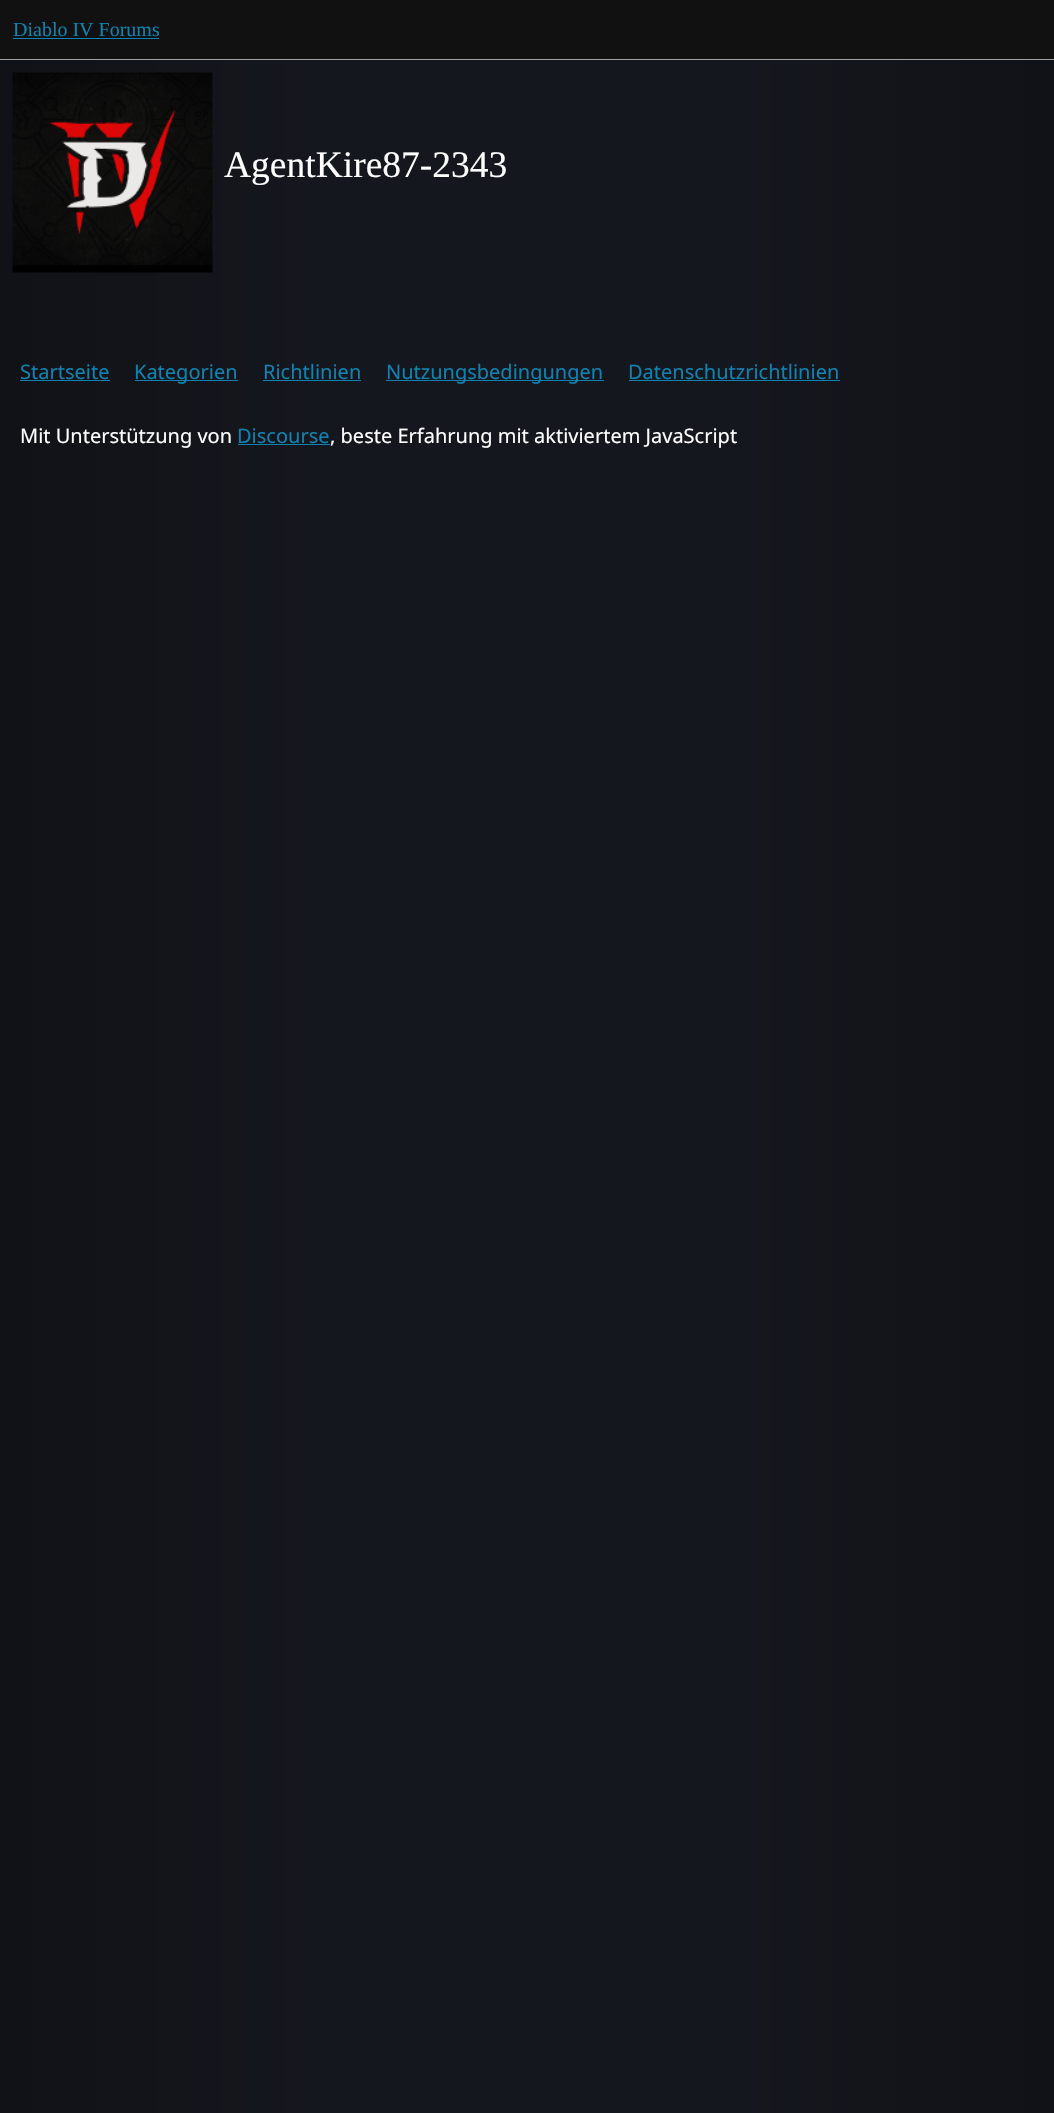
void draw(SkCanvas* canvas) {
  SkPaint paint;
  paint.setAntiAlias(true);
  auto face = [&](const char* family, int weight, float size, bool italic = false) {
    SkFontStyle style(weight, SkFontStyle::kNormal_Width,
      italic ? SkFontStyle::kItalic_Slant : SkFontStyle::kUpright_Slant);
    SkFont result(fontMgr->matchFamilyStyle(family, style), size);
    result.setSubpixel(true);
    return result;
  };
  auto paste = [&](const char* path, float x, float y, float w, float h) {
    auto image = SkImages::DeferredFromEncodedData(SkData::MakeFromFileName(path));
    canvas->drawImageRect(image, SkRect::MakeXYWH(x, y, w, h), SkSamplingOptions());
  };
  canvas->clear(0xffffffff);
  {
    const SkColor colors[] = {0xff111217, 0xff15171e, 0xff15171e, 0xff111217};
    const float stops[] = {0, 0.3f, 0.7f, 1};
    const SkPoint ends[] = {{0, 1057}, {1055, 1057}};
    paint.setShader(SkGradientShader::MakeLinear(ends, colors, stops, 4, SkTileMode::kClamp));
    paint.setAlpha(255);
  }
  canvas->drawRect(SkRect::MakeXYWH(0, 60, 1054, 2053), paint);
  paint.setShader(nullptr);
  {
    const struct { float x, y, w, h; SkColor color; } items[] = {
      {0, 0, 1054, 59, 0xff111111},
      {0, 59, 1054, 1, 0xffa4a4a4},
      {13, 38, 146, 1, 0xff0f82af},
    };
    for (auto [x, y, w, h, color] : items) {
      paint.setColor(color);
      canvas->drawRect(SkRect::MakeXYWH(x, y, w, h), paint);
    }
  }
  paste("img/1.png", 12, 72, 201, 201);
  {
    const struct { float x, y, w, h; SkColor color; } items[] = {
      {20, 380, 90, 1, 0xff0f82af},
      {135, 380, 103, 1, 0xff0f82af},
      {263, 380, 98, 1, 0xff0f82af},
      {386, 380, 218, 1, 0xff0f82af},
      {629, 380, 211, 1, 0xff0f82af},
      {238, 444, 92, 1, 0xff0f82af},
    };
    for (auto [x, y, w, h, color] : items) {
      paint.setColor(color);
      canvas->drawRect(SkRect::MakeXYWH(x, y, w, h), paint);
    }
  }
  auto f0 = face("Liberation Serif", 400, 20);
  canvas->drawString("Diablo IV Forums", 13, 36, f0, paint);
  auto f1 = face("Liberation Serif", 400, 37.5f);
  paint.setColor(0xffffffff);
  canvas->drawString("AgentKire87-2343", 224, 177, f1, paint);
  auto f2 = face("Noto Sans", 400, 20);
  paint.setColor(0xff0f82af);
  {
    const struct { const char* s; float x, y; } items[] = {
      {"Startseite", 20, 379},
      {"Kategorien", 134, 379},
      {"Richtlinien", 263, 379},
      {"Nutzungsbedingungen", 386, 379},
      {"Datenschutzrichtlinien", 628, 379},
    };
    for (auto [s, x, y] : items) {
      canvas->drawString(s, x, y, f2, paint);
    }
  }
  paint.setColor(0xffffffff);
  canvas->drawString("Mit Unterstützung von", 20, 443, f2, paint);
  paint.setColor(0xff0f82af);
  canvas->drawString("Discourse", 237, 443, f2, paint);
  paint.setColor(0xffffffff);
  canvas->drawString(", beste Erfahrung mit aktiviertem JavaScript", 330, 443, f2, paint);
}
